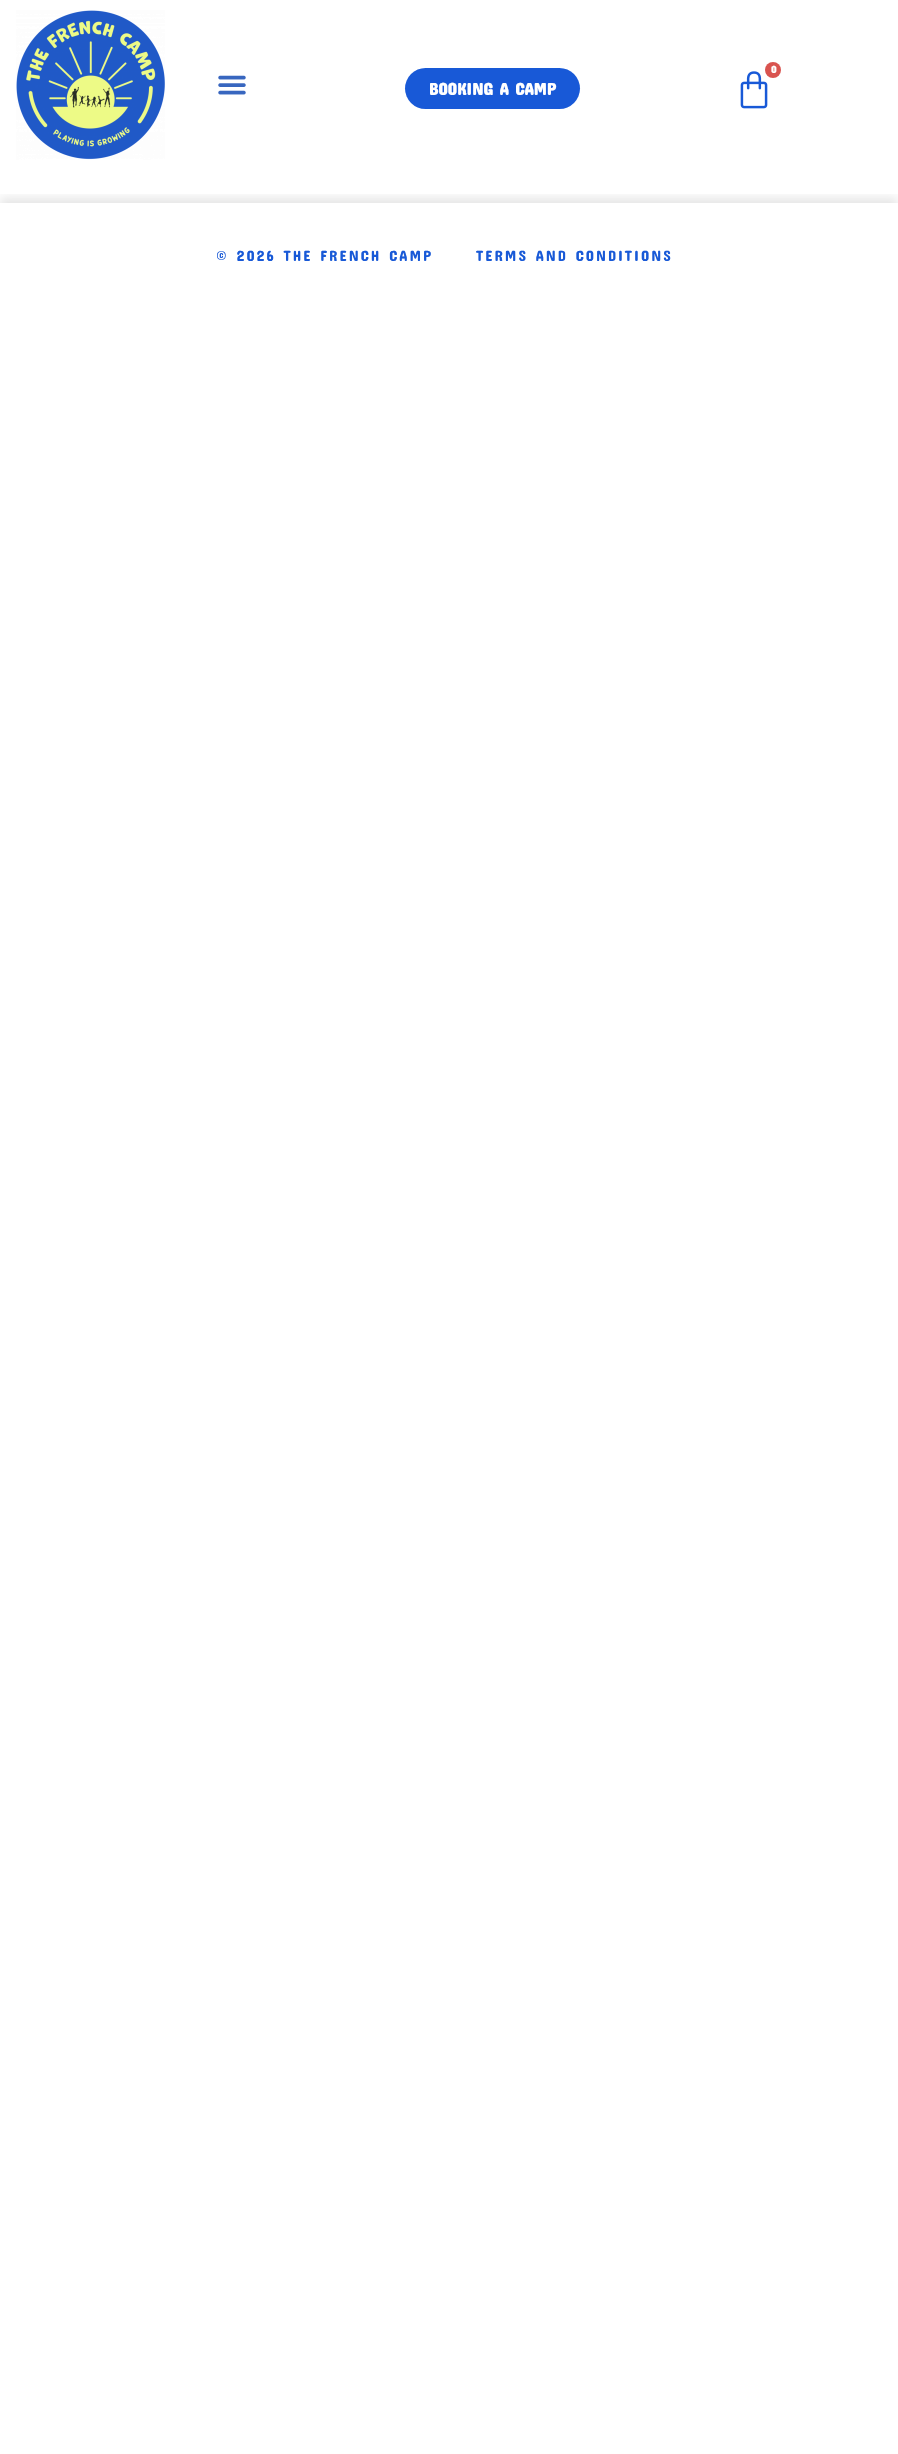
void draw(SkCanvas* canvas) {
  SkPaint paint;
  paint.setAntiAlias(true);
  auto face = [&](const char* family, int weight, float size, bool italic = false) {
    SkFontStyle style(weight, SkFontStyle::kNormal_Width,
      italic ? SkFontStyle::kItalic_Slant : SkFontStyle::kUpright_Slant);
    SkFont result(fontMgr->matchFamilyStyle(family, style), size);
    result.setSubpixel(true);
    return result;
  };
  auto writeSpaced = [&](const char* s, float x, float y, const SkFont& font, const SkPaint& ink, float letter, float word) {
    std::vector<SkGlyphID> glyphs(font.countText(s, strlen(s), SkTextEncoding::kUTF8));
    std::vector<float> xs(glyphs.size());
    font.textToGlyphs(s, strlen(s), SkTextEncoding::kUTF8, glyphs);
    font.getXPos(glyphs, xs, x);
    float extra = 0;
    for (size_t i = 0; i < glyphs.size(); i++) {
      xs[i] += extra;
      extra += letter + word * (glyphs[i] == font.unicharToGlyph(' '));
    }
    canvas->drawTextBlob(SkTextBlob::MakeFromPosHGlyphs(glyphs, xs, y, font), 0, 0, ink);
  };
  auto paste = [&](const char* path, float x, float y, float w, float h) {
    auto image = SkImages::DeferredFromEncodedData(SkData::MakeFromFileName(path));
    canvas->drawImageRect(image, SkRect::MakeXYWH(x, y, w, h), SkSamplingOptions());
  };
  canvas->clear(0xffffffff);
  paste("img/1.png", 16, 10, 149, 150);
  paste("img/2.png", 740, 71, 28, 38);
  paint.setColor(0xffd9534f);
  canvas->drawCircle(773, 70, 8, paint);
  paste("img/3.png", 218, 75, 28, 20);
  paint.setColor(0xff1859d7);
  canvas->drawRoundRect(SkRect::MakeXYWH(405, 68, 175, 41), 20.5f, 20.5f, paint);
  canvas->save();
  canvas->clipRect(SkRect::MakeXYWH(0, 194, 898, 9));
  paint.setColor(0x1a000000);
  paint.setMaskFilter(SkMaskFilter::MakeBlur(kNormal_SkBlurStyle, 5));
  canvas->drawRect(SkRect::MakeXYWH(0, 198, 898, 90), paint);
  paint.setMaskFilter(nullptr);
  canvas->restore();
  auto f0 = face("Concert One", 700, 10);
  paint.setColor(0xffffffff);
  canvas->drawString("0", 771, 73, f0, paint);
  auto f1 = face("Concert One", 700, 17);
  canvas->drawString("BOOKING A CAMP", 429, 95, f1, paint);
  auto f2 = face("Concert One", 400, 15);
  paint.setColor(0xff1859d7);
  writeSpaced("© 2026 THE FRENCH CAMP", 216, 261, f2, paint, 2, 0);
  writeSpaced("TERMS AND CONDITIONS", 476, 261, f2, paint, 2, 0);
}
